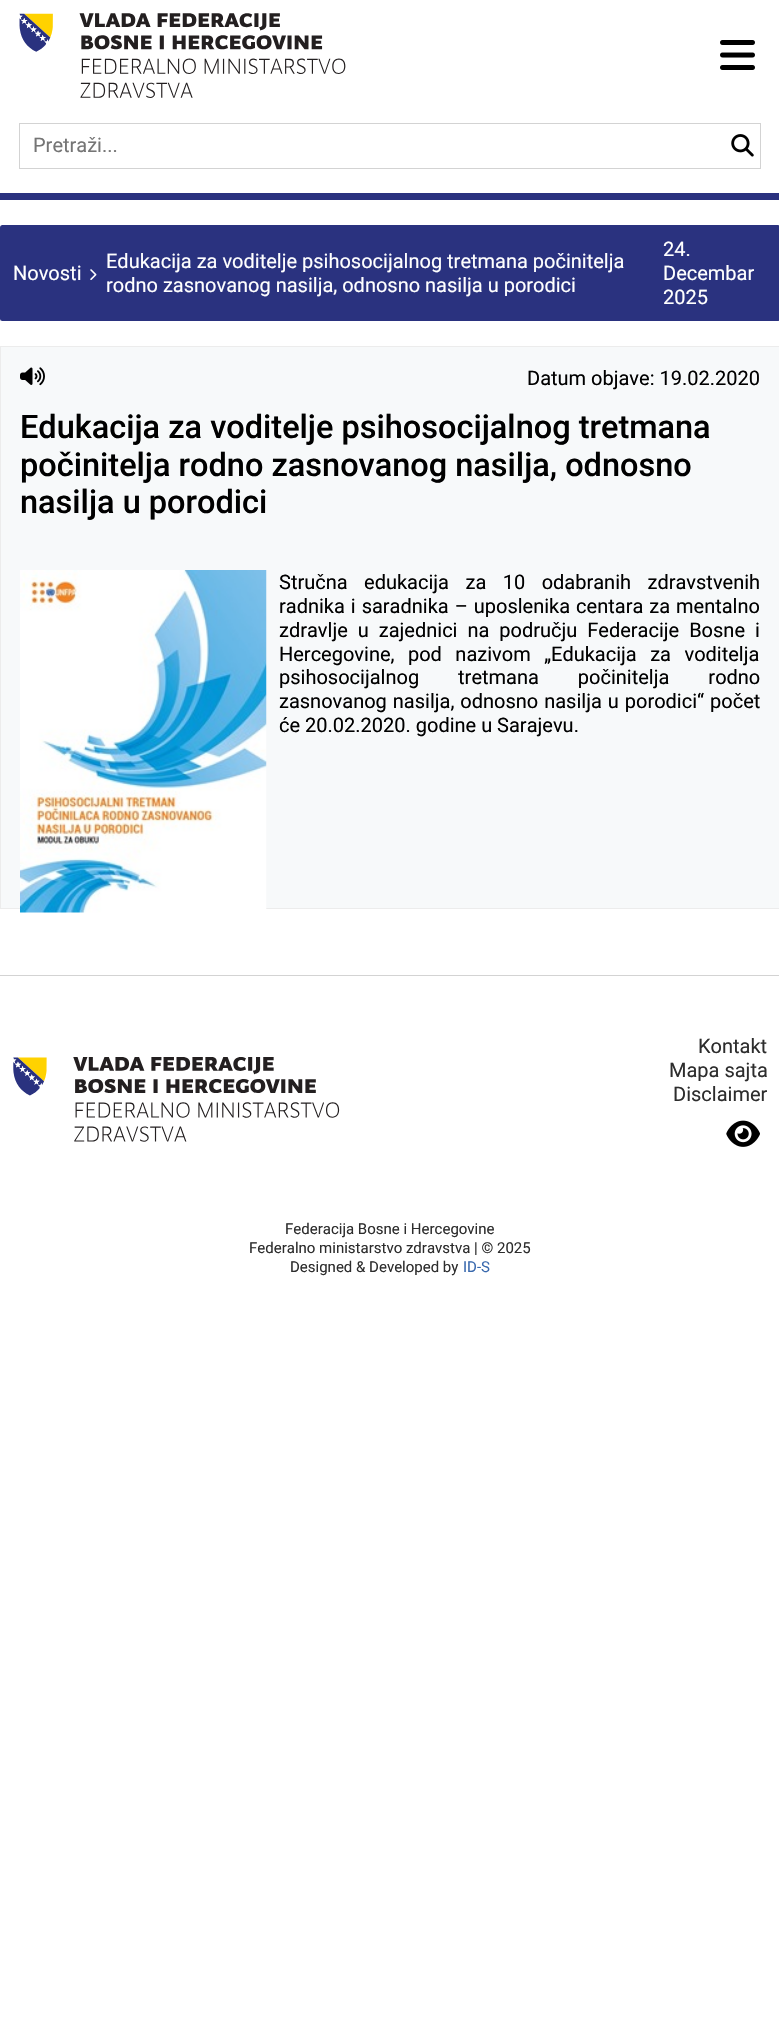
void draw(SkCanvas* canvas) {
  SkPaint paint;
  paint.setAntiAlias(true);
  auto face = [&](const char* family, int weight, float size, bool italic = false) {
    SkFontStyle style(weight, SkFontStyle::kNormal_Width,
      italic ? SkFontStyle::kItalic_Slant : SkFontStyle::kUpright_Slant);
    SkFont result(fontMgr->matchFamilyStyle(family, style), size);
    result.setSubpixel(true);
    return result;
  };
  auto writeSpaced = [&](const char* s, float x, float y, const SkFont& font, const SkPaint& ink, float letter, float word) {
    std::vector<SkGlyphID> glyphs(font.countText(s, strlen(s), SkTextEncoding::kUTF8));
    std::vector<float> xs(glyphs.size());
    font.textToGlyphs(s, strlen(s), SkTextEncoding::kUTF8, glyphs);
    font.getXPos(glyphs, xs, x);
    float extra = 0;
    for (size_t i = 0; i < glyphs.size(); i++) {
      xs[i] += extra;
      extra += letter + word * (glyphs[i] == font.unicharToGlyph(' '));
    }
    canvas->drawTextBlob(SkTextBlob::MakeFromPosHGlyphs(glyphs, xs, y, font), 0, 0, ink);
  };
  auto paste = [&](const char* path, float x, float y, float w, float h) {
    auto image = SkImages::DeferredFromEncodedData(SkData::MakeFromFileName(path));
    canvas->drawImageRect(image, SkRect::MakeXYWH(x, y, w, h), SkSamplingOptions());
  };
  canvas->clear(0xffffffff);
  paste("img/1.png", 19, 13, 327, 85);
  paste("img/2.png", 720, 40, 35, 30);
  paint.setStroke(true);
  paint.setStrokeWidth(1);
  paint.setColor(0xffd3d3d3);
  canvas->drawRect(SkRect::MakeXYWH(19.5f, 123.5f, 741, 45), paint);
  paste("img/3.png", 731, 134, 23, 23);
  paint.setStroke(false);
  paint.setColor(0xff2a327f);
  canvas->drawRect(SkRect::MakeXYWH(0, 193, 779, 7), paint);
  canvas->drawRoundRect(SkRect::MakeXYWH(0, 225, 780, 96), 2.5f, 2.5f, paint);
  paste("img/4.png", 90, 269, 7, 11);
  paint.setColor(0xfff7f9fa);
  canvas->drawRect(SkRect::MakeXYWH(0.5f, 346.5f, 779, 562), paint);
  paint.setStroke(true);
  paint.setColor(0xffececec);
  canvas->drawRect(SkRect::MakeXYWH(0.5f, 346.5f, 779, 562), paint);
  paste("img/5.png", 20, 367, 25, 19);
  paste("img/6.png", 20, 570, 247, 343);
  paint.setStroke(false);
  paint.setColor(0xffd3d3d3);
  canvas->drawRect(SkRect::MakeXYWH(0, 975, 779, 1), paint);
  paste("img/7.png", 13, 1057, 327, 85);
  paste("img/8.png", 726, 1120, 34, 27);
  auto f0 = face("Roboto", 400, 20);
  paint.setColor(0xff757575);
  canvas->drawString("Pretraži...", 33, 152, f0, paint);
  paint.setColor(0xffffffff);
  {
    const struct { const char* s; float x, y; } items[] = {
      {"Novosti", 13, 280},
      {"Edukacija za voditelje psihosocijalnog tretmana počinitelja", 106, 268},
      {"rodno zasnovanog nasilja, odnosno nasilja u porodici", 106, 292},
      {"24.", 663, 256},
      {"Decembar", 663, 280},
      {"2025", 663, 304},
    };
    for (auto [s, x, y] : items) {
      canvas->drawString(s, x, y, f0, paint);
    }
  }
  paint.setColor(0xff000000);
  canvas->drawString("Datum objave: 19.02.2020", 527, 385, f0, paint);
  auto f1 = face("Roboto", 500, 32.5f);
  {
    const struct { const char* s; float x, y; } items[] = {
      {"Edukacija za voditelje psihosocijalnog tretmana", 20, 438},
      {"počinitelja rodno zasnovanog nasilja, odnosno", 20, 476},
      {"nasilja u porodici", 20, 513},
    };
    for (auto [s, x, y] : items) {
      canvas->drawString(s, x, y, f1, paint);
    }
  }
  writeSpaced("Stručna edukacija za 10 odabranih zdravstvenih", 279, 589, f0, paint, 0, 11.5f);
  writeSpaced("radnika i saradnika – uposlenika centara za mentalno", 279, 613, f0, paint, 0, 1);
  writeSpaced("zdravlje u zajednici na području Federacije Bosne i", 279, 637, f0, paint, 0, 5);
  writeSpaced("Hercegovine, pod nazivom „Edukacija za voditelja", 279, 661, f0, paint, 0, 8.5f);
  writeSpaced("psihosocijalnog tretmana počinitelja rodno", 279, 684, f0, paint, 0, 34);
  writeSpaced("zasnovanog nasilja, odnosno nasilja u porodici“ počet", 279, 708, f0, paint, 0, 1);
  canvas->drawString("će 20.02.2020. godine u Sarajevu.", 279, 732, f0, paint);
  paint.setColor(0xff2d2d2d);
  {
    const struct { const char* s; float x, y; } items[] = {
      {"Kontakt", 698, 1053},
      {"Mapa sajta", 669, 1077},
      {"Disclaimer", 673, 1101},
    };
    for (auto [s, x, y] : items) {
      canvas->drawString(s, x, y, f0, paint);
    }
  }
  auto f2 = face("Roboto", 400, 15);
  {
    const struct { const char* s; float x, y; } items[] = {
      {"Federacija Bosne i Hercegovine", 285, 1234},
      {"Federalno ministarstvo zdravstva | © 2025", 249, 1253},
      {"Designed & Developed by", 290, 1272},
    };
    for (auto [s, x, y] : items) {
      canvas->drawString(s, x, y, f2, paint);
    }
  }
  paint.setColor(0xff3868ad);
  canvas->drawString("ID-S", 463, 1272, f2, paint);
}
